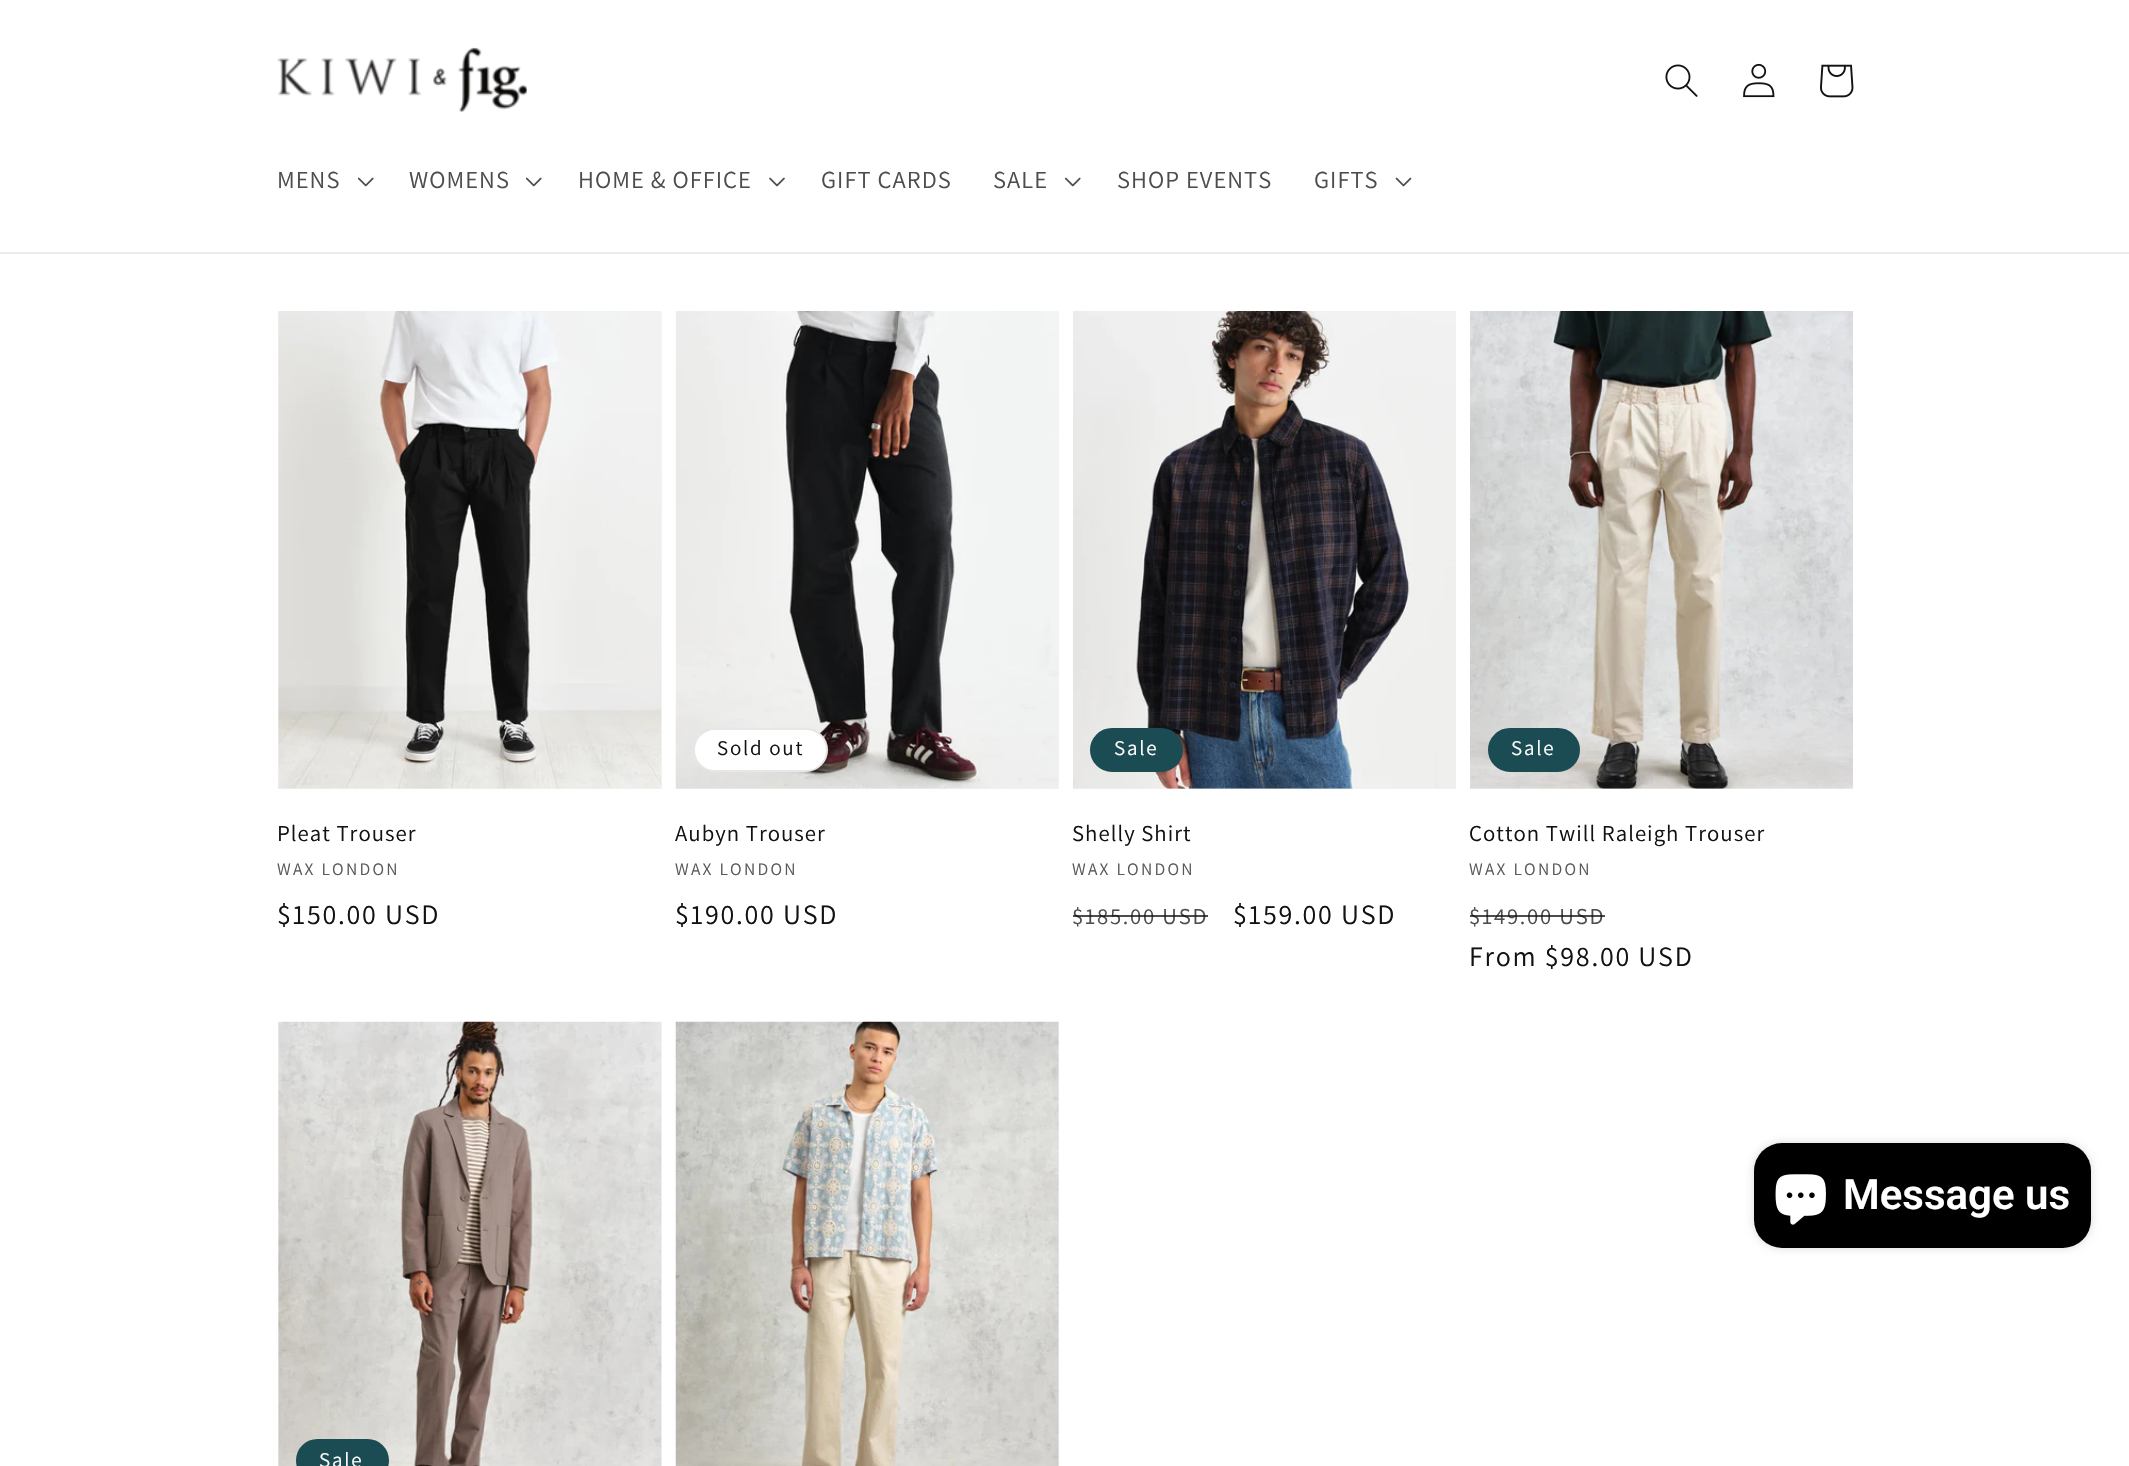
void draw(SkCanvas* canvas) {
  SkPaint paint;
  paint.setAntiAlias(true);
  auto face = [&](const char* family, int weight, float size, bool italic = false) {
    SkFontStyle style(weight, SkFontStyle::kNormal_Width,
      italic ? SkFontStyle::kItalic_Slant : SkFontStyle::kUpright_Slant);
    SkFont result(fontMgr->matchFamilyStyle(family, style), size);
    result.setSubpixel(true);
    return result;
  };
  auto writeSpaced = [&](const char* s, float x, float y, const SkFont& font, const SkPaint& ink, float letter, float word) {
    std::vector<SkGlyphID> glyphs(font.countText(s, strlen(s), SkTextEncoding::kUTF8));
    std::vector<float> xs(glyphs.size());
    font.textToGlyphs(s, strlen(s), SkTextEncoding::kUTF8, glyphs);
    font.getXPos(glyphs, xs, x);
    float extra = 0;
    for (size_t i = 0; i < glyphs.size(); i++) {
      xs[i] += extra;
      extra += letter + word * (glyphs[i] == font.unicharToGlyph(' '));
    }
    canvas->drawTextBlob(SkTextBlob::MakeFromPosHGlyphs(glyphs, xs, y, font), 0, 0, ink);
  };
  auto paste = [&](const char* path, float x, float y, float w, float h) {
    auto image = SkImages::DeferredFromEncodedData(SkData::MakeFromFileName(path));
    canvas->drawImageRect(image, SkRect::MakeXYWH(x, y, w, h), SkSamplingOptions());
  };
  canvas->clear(0xffffffff);
  paint.setColor(0xffececec);
  canvas->drawRect(SkRect::MakeXYWH(0, 252, 2129, 2), paint);
  paste("img/1.png", 277, 47, 250, 65);
  paste("img/2.png", 1665, 64, 33, 33);
  paste("img/3.png", 1743, 63, 32, 35);
  paste("img/4.png", 1820, 64, 34, 34);
  paste("img/5.png", 357, 177, 17, 10);
  paste("img/5.png", 525, 177, 17, 10);
  paste("img/6.png", 769, 177, 16, 10);
  paste("img/5.png", 1064, 177, 17, 10);
  paste("img/7.png", 1395, 177, 17, 10);
  paint.setColor(0xfff3f3f3);
  canvas->drawRect(SkRect::MakeXYWH(278, 312, 384, 477), paint);
  paste("img/8.png", 278, 311, 384, 478);
  canvas->drawRect(SkRect::MakeXYWH(676, 312, 383, 477), paint);
  paste("img/9.png", 675, 311, 384, 478);
  paint.setColor(0xffffffff);
  canvas->drawRoundRect(SkRect::MakeXYWH(693, 728, 135, 44), 22, 22, paint);
  paint.setStroke(true);
  paint.setStrokeWidth(2);
  paint.setColor(0x1a121212);
  canvas->drawRoundRect(SkRect::MakeXYWH(694, 729, 133, 42), 21, 21, paint);
  paint.setStroke(false);
  paint.setColor(0xfff3f3f3);
  canvas->drawRect(SkRect::MakeXYWH(1073, 788, 383, 1), paint);
  paste("img/10.png", 1073, 311, 383, 478);
  paint.setColor(0xff1b4b53);
  canvas->drawRoundRect(SkRect::MakeXYWH(1091, 729, 91, 42), 21, 21, paint);
  paint.setStroke(true);
  canvas->drawRoundRect(SkRect::MakeXYWH(1091, 729, 91, 42), 21, 21, paint);
  paint.setStroke(false);
  paint.setColor(0xfff3f3f3);
  canvas->drawRect(SkRect::MakeXYWH(1470, 788, 383, 1), paint);
  paste("img/11.png", 1470, 311, 383, 478);
  paint.setColor(0xff1b4b53);
  canvas->drawRoundRect(SkRect::MakeXYWH(1489, 729, 90, 42), 21, 21, paint);
  paint.setStroke(true);
  canvas->drawRoundRect(SkRect::MakeXYWH(1489, 729, 90, 42), 21, 21, paint);
  paint.setStroke(false);
  paint.setColor(0xfff3f3f3);
  canvas->drawRect(SkRect::MakeXYWH(278, 1022, 384, 444), paint);
  paste("img/12.png", 278, 1021, 384, 445);
  paint.setColor(0xff1b4b53);
  canvas->drawRoundRect(SkRect::MakeXYWH(297, 1440, 91, 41), 20.5f, 20.5f, paint);
  paint.setStroke(true);
  canvas->drawRoundRect(SkRect::MakeXYWH(297, 1440, 91, 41), 20.5f, 20.5f, paint);
  paint.setStroke(false);
  paint.setColor(0xfff3f3f3);
  canvas->drawRect(SkRect::MakeXYWH(1058, 1022, 1, 444), paint);
  paste("img/13.png", 675, 1021, 384, 445);
  paint.setColor(0x26000000);
  paint.setMaskFilter(SkMaskFilter::MakeBlur(kNormal_SkBlurStyle, 4.5f));
  canvas->drawRoundRect(SkRect::MakeXYWH(1754, 1143, 337, 105), 28, 28, paint);
  paint.setMaskFilter(nullptr);
  paint.setColor(0xff000000);
  canvas->drawRoundRect(SkRect::MakeXYWH(1754, 1143, 337, 105), 28, 28, paint);
  paste("img/14.png", 1775, 1174, 51, 51);
  auto f0 = face("Assistant", 400, 24.5f);
  paint.setColor(0xff4d4d4d);
  {
    const struct { const char* s; float x, y; } items[] = {
      {"MENS", 277, 188},
      {"WOMENS", 409, 188},
      {"HOME & OFFICE", 578, 188},
      {"GIFT CARDS", 821, 188},
      {"SALE", 993, 188},
      {"SHOP EVENTS", 1117, 188},
      {"GIFTS", 1314, 188},
    };
    for (auto [s, x, y] : items) {
      writeSpaced(s, x, y, f0, paint, 1.05f, 0);
    }
  }
  auto f1 = face("Assistant", 400, 22.75f);
  paint.setColor(0xff121212);
  writeSpaced("Pleat Trouser", 277, 841, f1, paint, 1.05f, 0);
  auto f2 = face("Assistant", 400, 17.5f);
  paint.setColor(0xff595959);
  writeSpaced("WAX LONDON", 277, 875, f2, paint, 2.25f, 0);
  auto f3 = face("Assistant", 400, 28);
  paint.setColor(0xff121212);
  writeSpaced("$150.00 USD", 277, 924, f3, paint, 1.75f, 0);
  auto f4 = face("Assistant", 400, 21);
  writeSpaced("Sold out", 717, 755, f4, paint, 1.75f, 0);
  writeSpaced("Aubyn Trouser", 675, 841, f1, paint, 1.05f, 0);
  paint.setColor(0xff595959);
  writeSpaced("WAX LONDON", 675, 875, f2, paint, 2.25f, 0);
  paint.setColor(0xff121212);
  writeSpaced("$190.00 USD", 675, 924, f3, paint, 1.75f, 0);
  paint.setColor(0xffffffff);
  writeSpaced("Sale", 1114, 755, f4, paint, 1.75f, 0);
  paint.setColor(0xff121212);
  writeSpaced("Shelly Shirt", 1072, 841, f1, paint, 1.05f, 0);
  paint.setColor(0xff595959);
  writeSpaced("WAX LONDON", 1072, 875, f2, paint, 2.25f, 0);
  paint.setColor(0xff4d4d4d);
  writeSpaced("$185.00 USD", 1072, 924, f1, paint, 1.75f, 0);
  paint.setColor(0xbf121212);
  canvas->drawRect(SkRect::MakeXYWH(1073, 915, 135, 2), paint);
  paint.setColor(0xff121212);
  writeSpaced("$159.00 USD", 1233, 924, f3, paint, 1.75f, 0);
  paint.setColor(0xffffffff);
  writeSpaced("Sale", 1511, 755, f4, paint, 1.75f, 0);
  paint.setColor(0xff121212);
  writeSpaced("Cotton Twill Raleigh Trouser", 1469, 841, f1, paint, 1.05f, 0);
  paint.setColor(0xff595959);
  writeSpaced("WAX LONDON", 1469, 875, f2, paint, 2.25f, 0);
  paint.setColor(0xff4d4d4d);
  writeSpaced("$149.00 USD", 1469, 924, f1, paint, 1.75f, 0);
  paint.setColor(0xbf121212);
  canvas->drawRect(SkRect::MakeXYWH(1470, 915, 135, 2), paint);
  paint.setColor(0xff121212);
  writeSpaced("From $98.00 USD", 1469, 966, f3, paint, 1.75f, 0);
  paint.setColor(0xffffffff);
  writeSpaced("Sale", 319, 1467, f4, paint, 1.75f, 0);
  auto f5 = face("Roboto", 600, 42);
  canvas->drawString("Message us", 1843, 1209, f5, paint);
}
